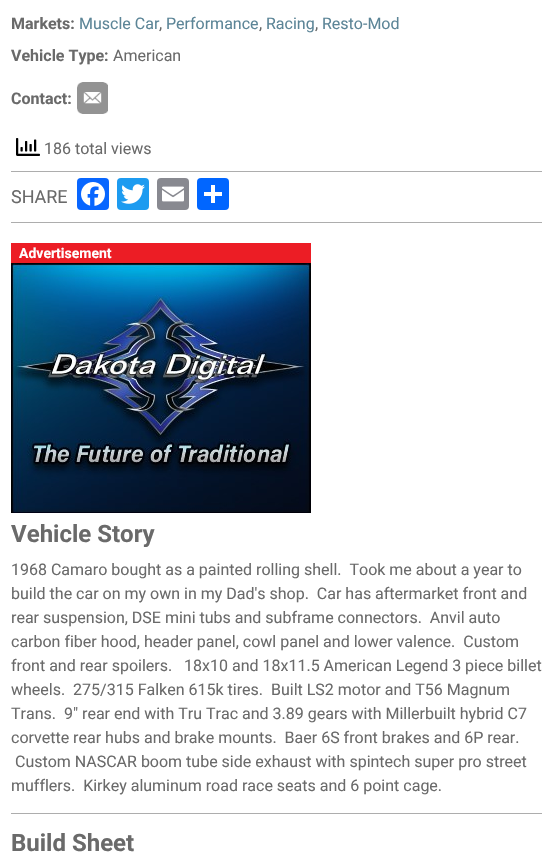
void draw(SkCanvas* canvas) {
  SkPaint paint;
  paint.setAntiAlias(true);
  auto face = [&](const char* family, int weight, float size, bool italic = false) {
    SkFontStyle style(weight, SkFontStyle::kNormal_Width,
      italic ? SkFontStyle::kItalic_Slant : SkFontStyle::kUpright_Slant);
    SkFont result(fontMgr->matchFamilyStyle(family, style), size);
    result.setSubpixel(true);
    return result;
  };
  auto paste = [&](const char* path, float x, float y, float w, float h) {
    auto image = SkImages::DeferredFromEncodedData(SkData::MakeFromFileName(path));
    canvas->drawImageRect(image, SkRect::MakeXYWH(x, y, w, h), SkSamplingOptions());
  };
  canvas->clear(0xffffffff);
  paste("img/1.png", 77, 82, 31, 32);
  paste("img/2.png", 16, 138, 24, 18);
  paint.setColor(0xffadadad);
  canvas->drawRect(SkRect::MakeXYWH(11, 171, 531, 1), paint);
  canvas->drawRect(SkRect::MakeXYWH(11, 222, 531, 1), paint);
  paint.setColor(0xff0866ff);
  canvas->drawRoundRect(SkRect::MakeXYWH(77, 178, 32, 32), 4, 4, paint);
  paste("img/3.png", 81, 182, 24, 24);
  paint.setColor(0xff1d9bf0);
  canvas->drawRoundRect(SkRect::MakeXYWH(117, 178, 32, 32), 4, 4, paint);
  paste("img/4.png", 121, 184, 24, 20);
  paint.setColor(0xff888990);
  canvas->drawRoundRect(SkRect::MakeXYWH(157, 178, 32, 32), 4, 4, paint);
  paste("img/5.png", 162, 186, 22, 16);
  paint.setColor(0xff0166ff);
  canvas->drawRoundRect(SkRect::MakeXYWH(197, 178, 32, 32), 4, 4, paint);
  {
    const struct { float x, y, w, h; SkColor color; } items[] = {
      {211, 185, 4, 18, 0xffffffff},
      {204, 192, 18, 4, 0xffffffff},
      {11, 243, 300, 20, 0xffec1d25},
    };
    for (auto [x, y, w, h, color] : items) {
      paint.setColor(color);
      canvas->drawRect(SkRect::MakeXYWH(x, y, w, h), paint);
    }
  }
  paste("img/6.png", 11, 263, 300, 250);
  paint.setColor(0xffadadad);
  canvas->drawRect(SkRect::MakeXYWH(11, 813, 531, 1), paint);
  auto f0 = face("Roboto", 700, 16);
  paint.setColor(0xff6a6a6a);
  canvas->drawString("Markets:", 11, 29, f0, paint);
  auto f1 = face("Roboto", 400, 16);
  paint.setColor(0xff5c8597);
  canvas->drawString("Muscle Car", 79, 29, f1, paint);
  paint.setColor(0xff6a6a6a);
  canvas->drawString(",", 159, 29, f1, paint);
  paint.setColor(0xff5c8597);
  canvas->drawString("Performance", 166, 29, f1, paint);
  paint.setColor(0xff6a6a6a);
  canvas->drawString(",", 259, 29, f1, paint);
  paint.setColor(0xff5c8597);
  canvas->drawString("Racing", 266, 29, f1, paint);
  paint.setColor(0xff6a6a6a);
  canvas->drawString(",", 315, 29, f1, paint);
  paint.setColor(0xff5c8597);
  canvas->drawString("Resto-Mod", 322, 29, f1, paint);
  paint.setColor(0xff6a6a6a);
  canvas->drawString("Vehicle Type:", 11, 61, f0, paint);
  canvas->drawString("American", 113, 61, f1, paint);
  canvas->drawString("Contact:", 11, 104, f0, paint);
  canvas->drawString("186 total views", 44, 154, f1, paint);
  auto f2 = face("Roboto", 400, 18);
  canvas->drawString("SHARE", 11, 203, f2, paint);
  auto f3 = face("Roboto", 700, 14);
  paint.setColor(0xffffffff);
  canvas->drawString("Advertisement", 19, 258, f3, paint);
  auto f4 = face("Roboto", 700, 24);
  paint.setColor(0xff6a6a6a);
  canvas->drawString("Vehicle Story", 11, 542, f4, paint);
  {
    const struct { const char* s; float x, y; } items[] = {
      {"1968 Camaro bought as a painted rolling shell.  Took me about a year to", 11, 575},
      {"build the car on my own in my Dad's shop.  Car has aftermarket front and", 11, 599},
      {"rear suspension, DSE mini tubs and subframe connectors.  Anvil auto", 11, 623},
      {"carbon fiber hood, header panel, cowl panel and lower valence.  Custom", 11, 647},
      {"front and rear spoilers.   18x10 and 18x11.5 American Legend 3 piece billet", 11, 671},
      {"wheels.  275/315 Falken 615k tires.  Built LS2 motor and T56 Magnum", 11, 695},
      {"Trans.  9\" rear end with Tru Trac and 3.89 gears with Millerbuilt hybrid C7", 11, 719},
      {"corvette rear hubs and brake mounts.  Baer 6S front brakes and 6P rear.", 11, 743},
      {"Custom NASCAR boom tube side exhaust with spintech super pro street", 15, 767},
      {"mufflers.  Kirkey aluminum road race seats and 6 point cage.", 11, 791},
    };
    for (auto [s, x, y] : items) {
      canvas->drawString(s, x, y, f1, paint);
    }
  }
  canvas->drawString("Build Sheet", 11, 851, f4, paint);
}
